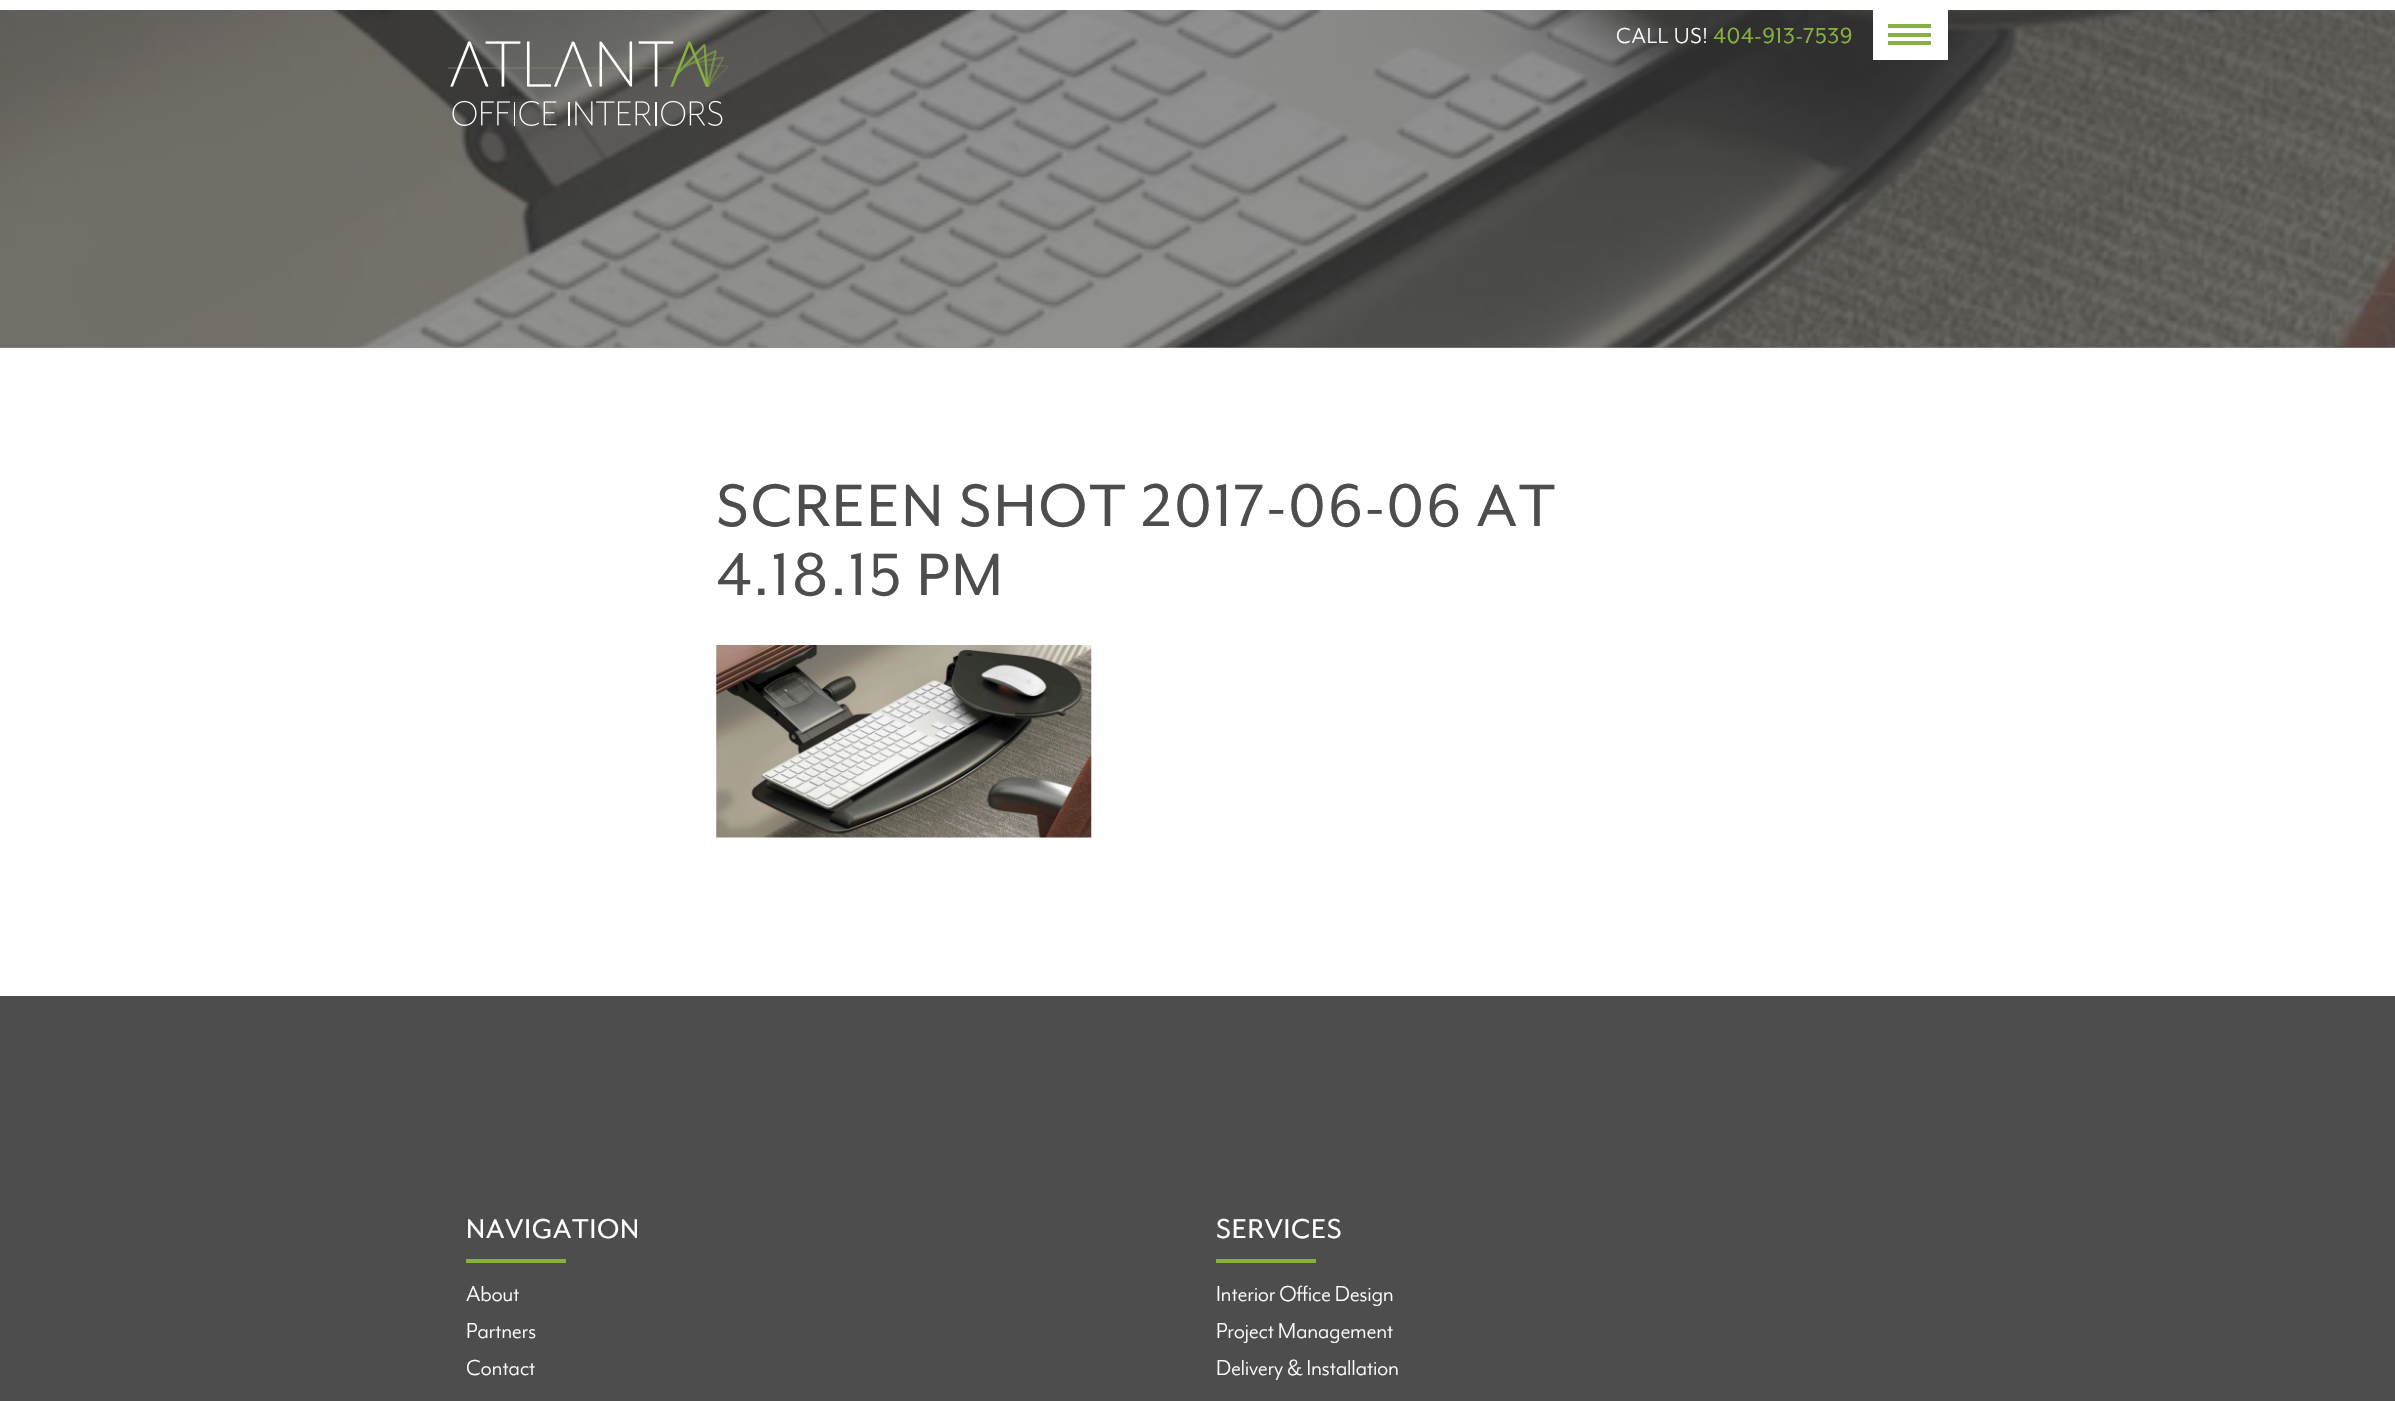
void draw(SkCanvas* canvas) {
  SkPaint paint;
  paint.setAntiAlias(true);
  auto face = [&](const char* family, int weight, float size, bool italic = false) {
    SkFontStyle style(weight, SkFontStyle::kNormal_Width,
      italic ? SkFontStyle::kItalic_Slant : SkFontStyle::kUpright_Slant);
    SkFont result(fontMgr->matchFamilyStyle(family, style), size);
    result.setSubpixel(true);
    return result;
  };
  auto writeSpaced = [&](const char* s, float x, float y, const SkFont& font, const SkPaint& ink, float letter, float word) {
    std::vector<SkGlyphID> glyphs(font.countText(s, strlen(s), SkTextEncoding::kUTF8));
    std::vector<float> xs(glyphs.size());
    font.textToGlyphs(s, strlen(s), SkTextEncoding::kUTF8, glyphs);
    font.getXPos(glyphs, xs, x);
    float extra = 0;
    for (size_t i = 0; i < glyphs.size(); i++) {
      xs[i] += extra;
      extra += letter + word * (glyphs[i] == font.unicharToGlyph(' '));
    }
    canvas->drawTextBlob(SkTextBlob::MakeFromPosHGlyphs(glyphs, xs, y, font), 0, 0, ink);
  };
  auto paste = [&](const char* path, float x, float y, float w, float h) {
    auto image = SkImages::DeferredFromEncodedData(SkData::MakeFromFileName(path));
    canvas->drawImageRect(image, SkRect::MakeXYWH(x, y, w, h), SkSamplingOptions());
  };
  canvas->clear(0xffffffff);
  paint.setColor(0xff949494);
  canvas->drawRect(SkRect::MakeXYWH(0, 347, 2395, 1), paint);
  paste("img/1.png", 0, 10, 2395, 338);
  {
    const struct { float x, y, w, h; SkColor color; } items[] = {
      {1873, 10, 75, 50, 0xffffffff},
      {1888, 24, 43, 4, 0xff86b13f},
      {1888, 33, 43, 4, 0xff86b13f},
      {1888, 41, 43, 4, 0xff86b13f},
    };
    for (auto [x, y, w, h, color] : items) {
      paint.setColor(color);
      canvas->drawRect(SkRect::MakeXYWH(x, y, w, h), paint);
    }
  }
  paste("img/2.png", 448, 41, 281, 85);
  paste("img/3.png", 716, 645, 376, 193);
  {
    const struct { float x, y, w, h; SkColor color; } items[] = {
      {0, 996, 2395, 405, 0xff4d4d4d},
      {466, 1259, 100, 4, 0xff86b13f},
      {1216, 1259, 100, 4, 0xff86b13f},
    };
    for (auto [x, y, w, h, color] : items) {
      paint.setColor(color);
      canvas->drawRect(SkRect::MakeXYWH(x, y, w, h), paint);
    }
  }
  auto f0 = face("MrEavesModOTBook", 400, 25);
  paint.setColor(0xffffffff);
  writeSpaced("CALL US!", 1616, 43, f0, paint, 0.6f, 0);
  auto f1 = face("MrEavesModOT", 400, 25);
  paint.setColor(0xff86b13f);
  writeSpaced("404-913-7539", 1713, 43, f1, paint, 0.6f, 0);
  auto f2 = face("MrEavesModOT", 400, 68.75f);
  paint.setColor(0xff4d4d4d);
  writeSpaced("SCREEN SHOT 2017-06-06 AT", 716, 526, f2, paint, 1.75f, 0);
  writeSpaced("4.18.15 PM", 716, 595, f2, paint, 1.75f, 0);
  auto f3 = face("MrEavesModOT", 400, 31.25f);
  paint.setColor(0xffffffff);
  writeSpaced("NAVIGATION", 466, 1238, f3, paint, 0.75f, 0);
  {
    const struct { const char* s; float x, y; } items[] = {
      {"About", 466, 1301},
      {"Partners", 466, 1338},
      {"Contact", 466, 1375},
    };
    for (auto [s, x, y] : items) {
      writeSpaced(s, x, y, f0, paint, -0.3f, 0);
    }
  }
  writeSpaced("SERVICES", 1216, 1238, f3, paint, 0.75f, 0);
  {
    const struct { const char* s; float x, y; } items[] = {
      {"Interior Office Design", 1216, 1301},
      {"Project Management", 1216, 1338},
      {"Delivery & Installation", 1216, 1375},
    };
    for (auto [s, x, y] : items) {
      writeSpaced(s, x, y, f0, paint, -0.3f, 0);
    }
  }
}
